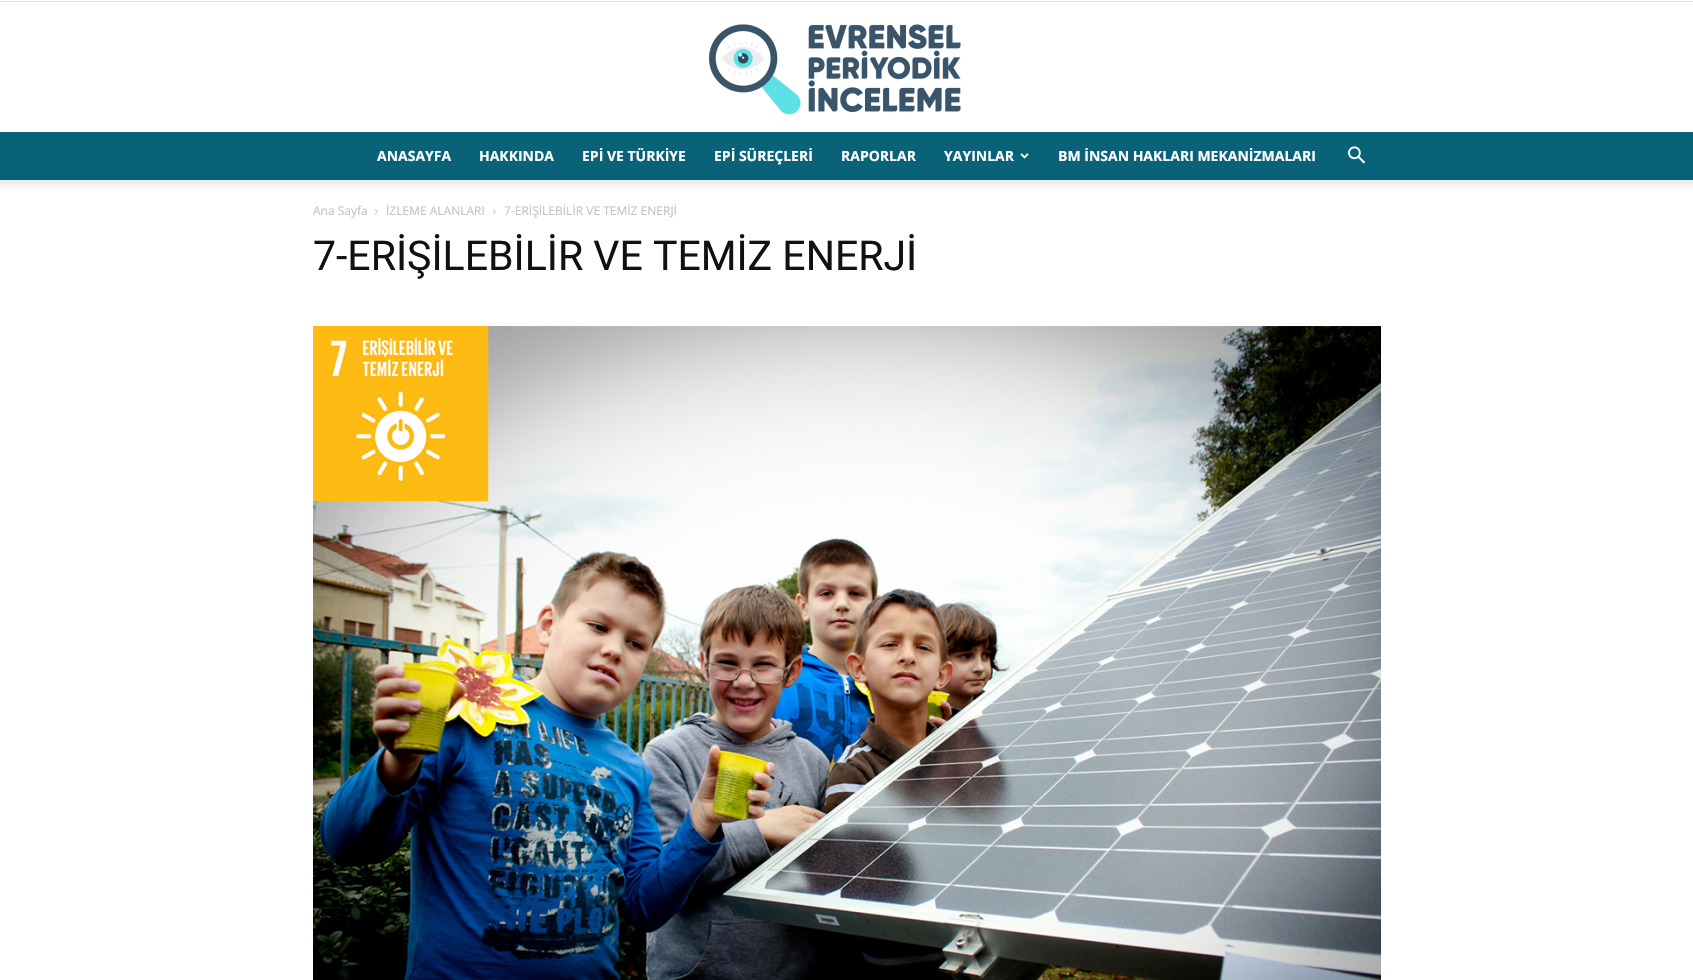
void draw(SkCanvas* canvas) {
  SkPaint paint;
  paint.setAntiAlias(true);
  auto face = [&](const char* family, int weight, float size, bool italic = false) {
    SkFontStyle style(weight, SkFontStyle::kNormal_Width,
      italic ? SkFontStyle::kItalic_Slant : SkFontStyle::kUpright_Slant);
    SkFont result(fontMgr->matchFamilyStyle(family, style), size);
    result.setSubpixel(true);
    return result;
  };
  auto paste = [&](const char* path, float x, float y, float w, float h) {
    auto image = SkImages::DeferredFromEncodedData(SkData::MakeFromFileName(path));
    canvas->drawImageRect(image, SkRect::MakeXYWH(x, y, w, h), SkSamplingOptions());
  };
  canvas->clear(0xffffffff);
  paint.setColor(0xffe0e0e0);
  canvas->drawRect(SkRect::MakeXYWH(0, 1, 1693, 1), paint);
  paste("img/1.png", 708, 24, 253, 91);
  paint.setColor(0xff0a6278);
  canvas->drawRect(SkRect::MakeXYWH(0, 132, 1693, 48), paint);
  paste("img/2.png", 1020, 153, 9, 6);
  paste("img/3.png", 1348, 146, 17, 18);
  paste("img/4.png", 0, 180, 1693, 9);
  paste("img/5.png", 375, 209, 3, 5);
  paste("img/5.png", 493, 209, 3, 5);
  paste("img/6.png", 313, 326, 1068, 654);
  auto f0 = face("Open Sans", 700, 14);
  paint.setColor(0xffffffff);
  {
    const struct { const char* s; float x, y; } items[] = {
      {"ANASAYFA", 377, 161},
      {"HAKKINDA", 479, 161},
      {"EPİ VE TÜRKİYE", 582, 161},
      {"EPİ SÜREÇLERİ", 714, 161},
      {"RAPORLAR", 841, 161},
      {"YAYINLAR", 944, 161},
      {"BM İNSAN HAKLARI MEKANİZMALARI", 1058, 161},
    };
    for (auto [s, x, y] : items) {
      canvas->drawString(s, x, y, f0, paint);
    }
  }
  auto f1 = face("Open Sans", 400, 12);
  paint.setColor(0xffc3c3c3);
  {
    const struct { const char* s; float x, y; } items[] = {
      {"Ana Sayfa", 313, 215},
      {"İZLEME ALANLARI", 386, 215},
      {"7-ERİŞİLEBİLİR VE TEMİZ ENERJİ", 504, 215},
    };
    for (auto [s, x, y] : items) {
      canvas->drawString(s, x, y, f1, paint);
    }
  }
  auto f2 = face("Roboto", 400, 41);
  paint.setColor(0xff111111);
  canvas->drawString("7-ERİŞİLEBİLİR VE TEMİZ ENERJİ", 313, 270, f2, paint);
}
